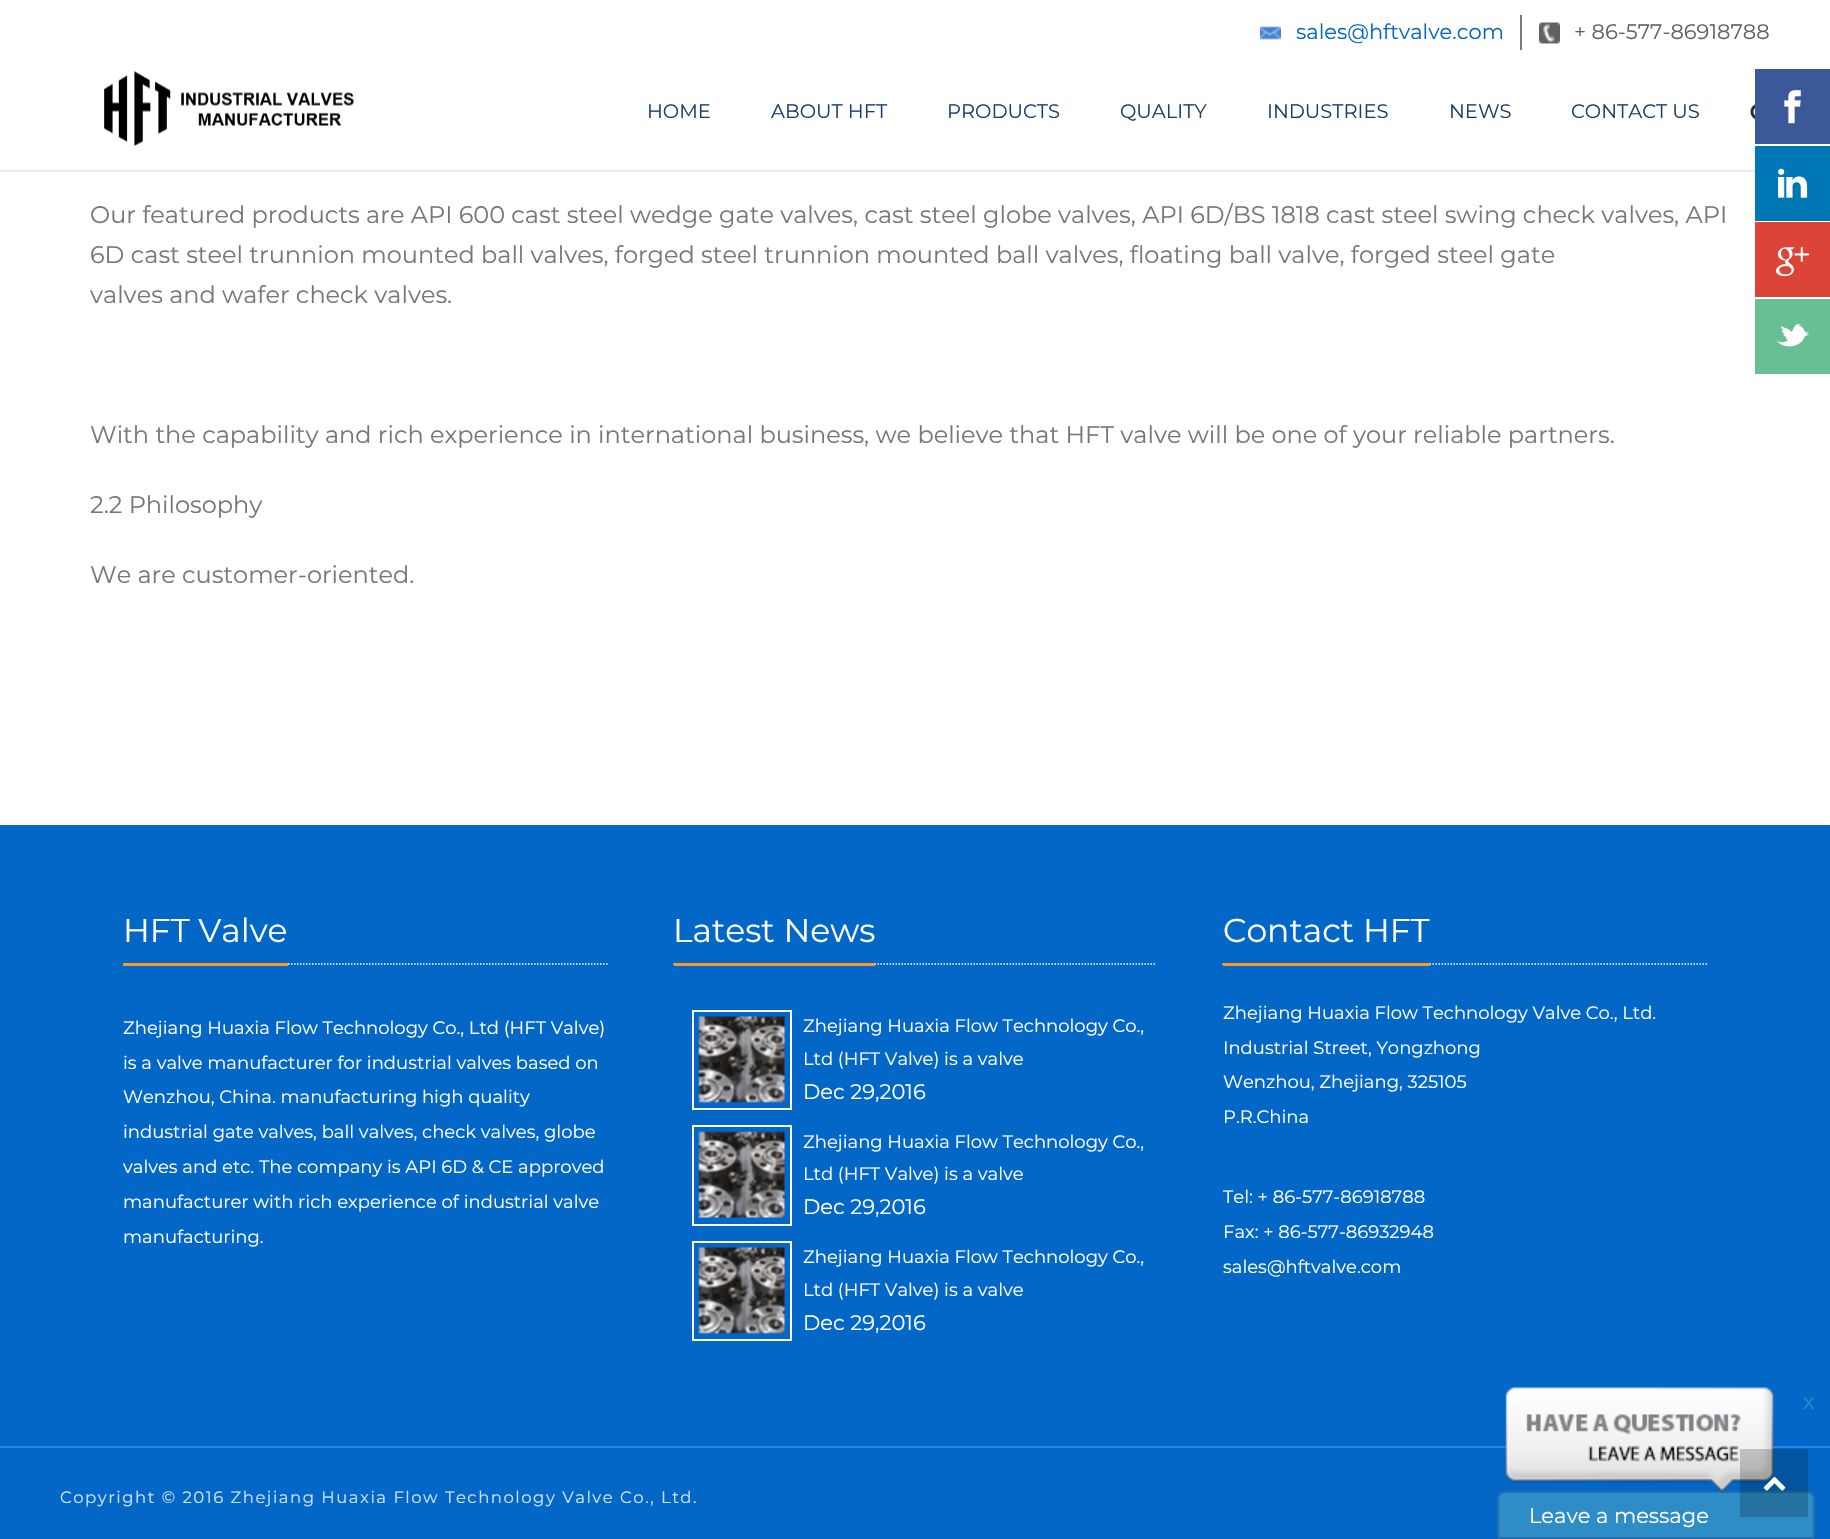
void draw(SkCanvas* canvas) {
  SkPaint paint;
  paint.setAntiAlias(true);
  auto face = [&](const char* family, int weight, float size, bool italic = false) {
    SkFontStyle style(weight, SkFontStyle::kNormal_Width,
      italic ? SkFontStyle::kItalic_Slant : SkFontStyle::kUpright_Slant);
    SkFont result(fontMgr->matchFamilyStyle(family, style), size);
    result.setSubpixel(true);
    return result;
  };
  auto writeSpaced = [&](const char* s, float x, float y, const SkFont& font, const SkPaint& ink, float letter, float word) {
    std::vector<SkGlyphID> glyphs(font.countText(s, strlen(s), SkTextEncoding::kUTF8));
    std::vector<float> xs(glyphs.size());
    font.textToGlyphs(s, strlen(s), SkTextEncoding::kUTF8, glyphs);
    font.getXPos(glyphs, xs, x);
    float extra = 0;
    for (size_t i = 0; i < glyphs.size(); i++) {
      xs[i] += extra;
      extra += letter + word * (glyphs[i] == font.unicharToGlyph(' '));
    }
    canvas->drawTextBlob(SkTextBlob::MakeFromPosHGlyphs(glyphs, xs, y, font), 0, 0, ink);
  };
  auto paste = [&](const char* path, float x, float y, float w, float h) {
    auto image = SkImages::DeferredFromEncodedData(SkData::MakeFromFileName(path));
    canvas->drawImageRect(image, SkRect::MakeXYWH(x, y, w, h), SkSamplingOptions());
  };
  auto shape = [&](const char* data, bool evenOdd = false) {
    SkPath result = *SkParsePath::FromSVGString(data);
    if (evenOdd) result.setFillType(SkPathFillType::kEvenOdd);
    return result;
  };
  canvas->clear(0xffffffff);
  paint.setColor(0xff7a7a7a);
  canvas->drawRect(SkRect::MakeXYWH(1520, 15, 2, 35), paint);
  paste("img/1.png", 1260, 26, 21, 14);
  paste("img/2.png", 1539, 22, 21, 22);
  paint.setColor(0xffededed);
  canvas->drawRect(SkRect::MakeXYWH(0, 170, 1755, 2), paint);
  paste("img/3.png", 104, 71, 250, 75);
  paste("img/4.png", 1750, 104, 5, 15);
  paint.setColor(0xff0367c7);
  canvas->drawRect(SkRect::MakeXYWH(0, 825, 1830, 714), paint);
  paint.setStroke(true);
  paint.setStrokeWidth(1.5f);
  paint.setColor(0xffffffff);
  paint.setPathEffect(SkDashPathEffect::Make({{1.5f, 1.5f}}, 0));
  canvas->drawPath(shape("M123 964H607.5"), paint);
  paint.setPathEffect(nullptr);
  paint.setStroke(false);
  paint.setColor(0xfffa9928);
  canvas->drawRect(SkRect::MakeXYWH(123, 963, 165, 3), paint);
  paint.setStroke(true);
  paint.setColor(0xffffffff);
  paint.setPathEffect(SkDashPathEffect::Make({{1.5f, 1.5f}}, 0));
  canvas->drawPath(shape("M673.5 964H1156.5"), paint);
  paint.setPathEffect(nullptr);
  paint.setStroke(false);
  paint.setColor(0xfffa9928);
  canvas->drawRect(SkRect::MakeXYWH(674, 963, 201, 3), paint);
  paint.setStroke(true);
  paint.setStrokeWidth(2);
  paint.setColor(0xffffffff);
  canvas->drawRect(SkRect::MakeXYWH(693, 1011, 98, 98), paint);
  paste("img/5.png", 698, 1016, 87, 87);
  canvas->drawRect(SkRect::MakeXYWH(693, 1126, 98, 99), paint);
  paste("img/6.png", 698, 1131, 87, 87);
  canvas->drawRect(SkRect::MakeXYWH(693, 1242, 98, 98), paint);
  paste("img/7.png", 698, 1247, 87, 87);
  paint.setStrokeWidth(1.5f);
  paint.setPathEffect(SkDashPathEffect::Make({{1.5f, 1.5f}}, 0));
  canvas->drawPath(shape("M1222.5 964H1707"), paint);
  paint.setPathEffect(nullptr);
  paint.setStroke(false);
  paint.setColor(0xfffa9928);
  canvas->drawRect(SkRect::MakeXYWH(1223, 963, 207, 3), paint);
  paint.setColor(0xff2188eb);
  canvas->drawRect(SkRect::MakeXYWH(0, 1446, 1830, 2), paint);
  paste("img/8.png", 1505, 1387, 269, 104);
  paint.setColor(0xff2e8dc7);
  canvas->drawPath(shape("M1505 1492H1807C1811 1492 1814 1495 1814 1499V1538H1498V1499C1498 1495 1501 1492 1505 1492Z"), paint);
  paint.setStroke(true);
  paint.setStrokeWidth(2);
  paint.setColor(0xff2070b0);
  canvas->drawPath(shape("M1505 1492H1807C1811 1492 1814 1495 1814 1499V1538H1498V1499C1498 1495 1501 1492 1505 1492Z"), paint);
  paint.setStroke(false);
  paint.setColor(0xff3b5998);
  canvas->drawRect(SkRect::MakeXYWH(1755, 69, 75, 75), paint);
  paste("img/9.png", 1784, 90, 17, 34);
  paint.setColor(0xff0077b5);
  canvas->drawRect(SkRect::MakeXYWH(1755, 146, 75, 75), paint);
  paste("img/10.png", 1778, 168, 30, 30);
  paint.setColor(0xffdb4437);
  canvas->drawRect(SkRect::MakeXYWH(1755, 222, 75, 75), paint);
  paste("img/11.png", 1776, 247, 33, 30);
  paint.setColor(0xff69bf94);
  canvas->drawRect(SkRect::MakeXYWH(1755, 299, 75, 75), paint);
  paste("img/12.png", 1776, 323, 33, 24);
  paint.setColor(0x33000000);
  canvas->drawRect(SkRect::MakeXYWH(1740, 1449, 68, 68), paint);
  paste("img/13.png", 1763, 1476, 23, 15);
  auto f0 = face("Montserrat", 400, 21);
  paint.setColor(0xff0367c7);
  canvas->drawString("sales@hftvalve.com", 1296, 39, f0, paint);
  paint.setColor(0xff616161);
  canvas->drawString("+ 86-577-86918788", 1574, 39, f0, paint);
  auto f1 = face("Montserrat", 400, 19.5f);
  paint.setColor(0xff1b3d6e);
  {
    const struct { const char* s; float x, y; } items[] = {
      {"HOME", 647, 118},
      {"ABOUT HFT", 771, 118},
      {"PRODUCTS", 947, 118},
      {"QUALITY", 1120, 118},
      {"INDUSTRIES", 1267, 118},
      {"NEWS", 1449, 118},
      {"CONTACT US", 1571, 118},
    };
    for (auto [s, x, y] : items) {
      canvas->drawString(s, x, y, f1, paint);
    }
  }
  auto f2 = face("Montserrat", 400, 24);
  paint.setColor(0xff777777);
  {
    const struct { const char* s; float x, y; } items[] = {
      {"Our featured products are API 600 cast steel wedge gate valves, cast steel globe valves, API 6D/BS 1818 cast steel swing check valves, API", 90, 223},
      {"6D cast steel trunnion mounted ball valves, forged steel trunnion mounted ball valves, floating ball valve, forged steel gate", 90, 263},
      {"valves and wafer check valves.", 90, 303},
      {"With the capability and rich experience in international business, we believe that HFT valve will be one of your reliable partners.", 90, 443},
      {"2.2 Philosophy", 90, 513},
      {"We are customer-oriented.", 90, 583},
    };
    for (auto [s, x, y] : items) {
      canvas->drawString(s, x, y, f2, paint);
    }
  }
  auto f3 = face("Montserrat", 400, 33);
  paint.setColor(0xffffffff);
  canvas->drawString("HFT Valve", 123, 942, f3, paint);
  auto f4 = face("Montserrat", 400, 18);
  {
    const struct { const char* s; float x, y; } items[] = {
      {"Zhejiang Huaxia Flow Technology Co., Ltd (HFT Valve)", 123, 1034},
      {"is a valve manufacturer for industrial valves based on", 123, 1069},
      {"Wenzhou, China. manufacturing high quality", 123, 1103},
      {"industrial gate valves, ball valves, check valves, globe", 123, 1138},
      {"valves and etc. The company is API 6D & CE approved", 123, 1173},
      {"manufacturer with rich experience of industrial valve", 123, 1208},
      {"manufacturing.", 123, 1243},
    };
    for (auto [s, x, y] : items) {
      canvas->drawString(s, x, y, f4, paint);
    }
  }
  canvas->drawString("Latest News", 673, 942, f3, paint);
  canvas->drawString("Zhejiang Huaxia Flow Technology Co.,", 803, 1032, f4, paint);
  canvas->drawString("Ltd (HFT Valve) is a valve", 803, 1065, f4, paint);
  canvas->drawString("Dec 29,2016", 803, 1099, f0, paint);
  canvas->drawString("Zhejiang Huaxia Flow Technology Co.,", 803, 1148, f4, paint);
  canvas->drawString("Ltd (HFT Valve) is a valve", 803, 1180, f4, paint);
  canvas->drawString("Dec 29,2016", 803, 1214, f0, paint);
  canvas->drawString("Zhejiang Huaxia Flow Technology Co.,", 803, 1263, f4, paint);
  canvas->drawString("Ltd (HFT Valve) is a valve", 803, 1296, f4, paint);
  canvas->drawString("Dec 29,2016", 803, 1330, f0, paint);
  canvas->drawString("Contact HFT", 1223, 942, f3, paint);
  {
    const struct { const char* s; float x, y; } items[] = {
      {"Zhejiang Huaxia Flow Technology Valve Co., Ltd.", 1223, 1019},
      {"Industrial Street, Yongzhong", 1223, 1054},
      {"Wenzhou, Zhejiang, 325105", 1223, 1088},
      {"P.R.China", 1223, 1123},
      {"Tel: + 86-577-86918788", 1223, 1203},
      {"Fax: + 86-577-86932948", 1223, 1238},
      {"sales@hftvalve.com", 1223, 1273},
    };
    for (auto [s, x, y] : items) {
      canvas->drawString(s, x, y, f4, paint);
    }
  }
  auto f5 = face("Montserrat", 400, 16.5f);
  paint.setColor(0xffcde1f4);
  writeSpaced("Copyright © 2016 Zhejiang Huaxia Flow Technology Valve Co., Ltd.", 60, 1503, f5, paint, 1.5f, 0);
  auto f6 = face("Montserrat", 400, 22);
  paint.setColor(0xff2e8dc7);
  canvas->drawString("x", 1803, 1409, f6, paint);
  paint.setColor(0xffffffff);
  canvas->drawString("Leave a message", 1529, 1523, f0, paint);
}
